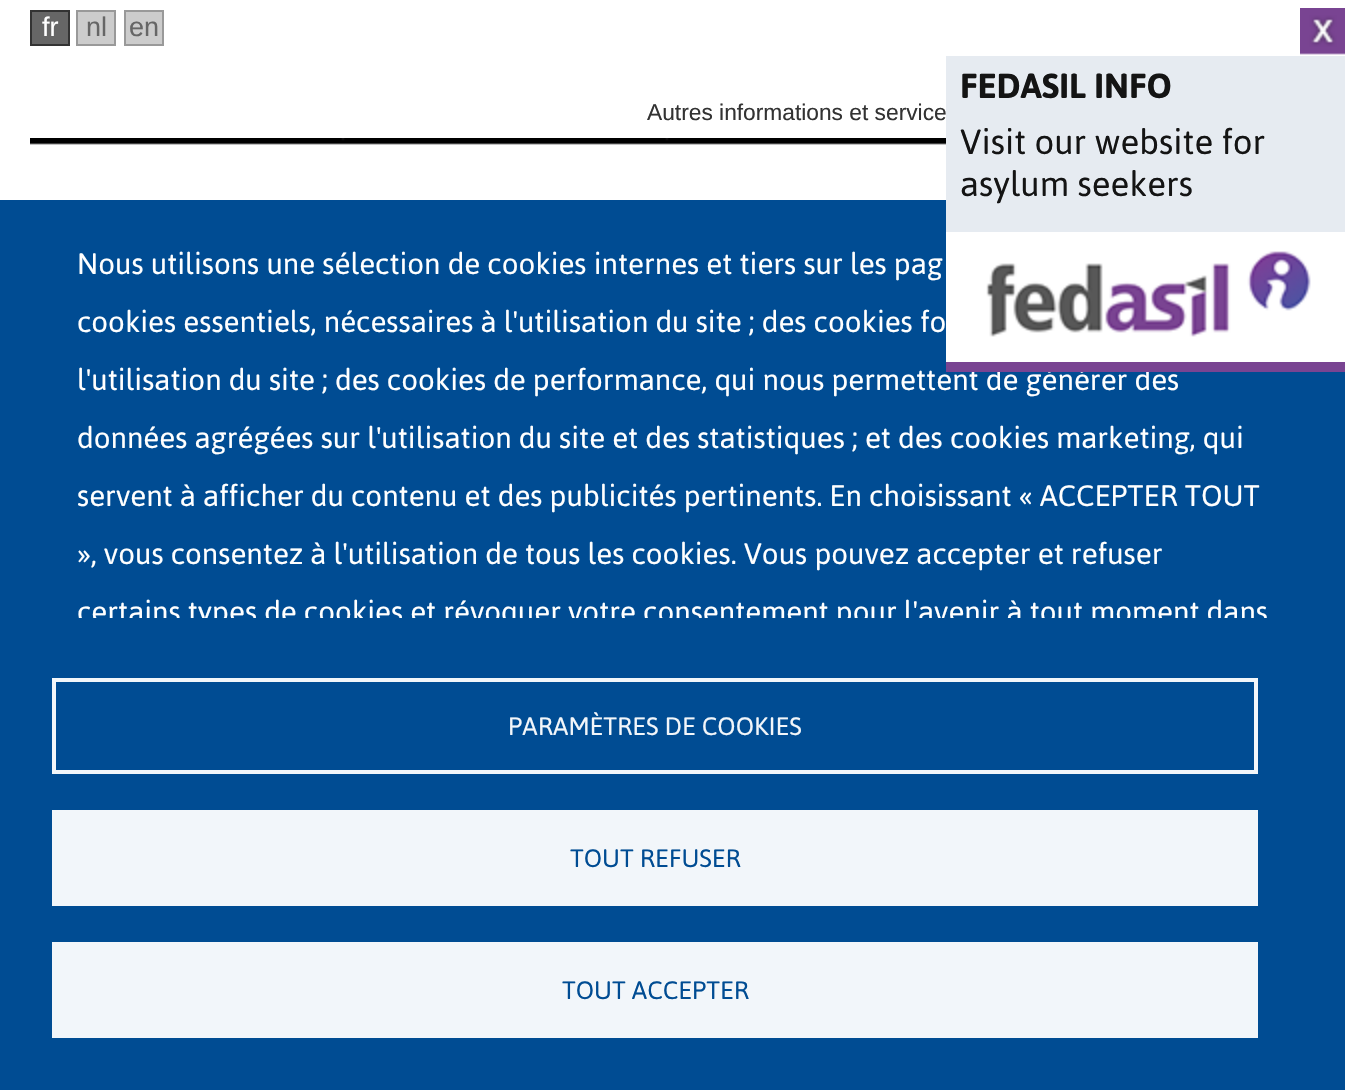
void draw(SkCanvas* canvas) {
  SkPaint paint;
  paint.setAntiAlias(true);
  auto face = [&](const char* family, int weight, float size, bool italic = false) {
    SkFontStyle style(weight, SkFontStyle::kNormal_Width,
      italic ? SkFontStyle::kItalic_Slant : SkFontStyle::kUpright_Slant);
    SkFont result(fontMgr->matchFamilyStyle(family, style), size);
    result.setSubpixel(true);
    return result;
  };
  auto paste = [&](const char* path, float x, float y, float w, float h) {
    auto image = SkImages::DeferredFromEncodedData(SkData::MakeFromFileName(path));
    canvas->drawImageRect(image, SkRect::MakeXYWH(x, y, w, h), SkSamplingOptions());
  };
  canvas->clear(0xffffffff);
  paint.setColor(0xff666666);
  canvas->drawRect(SkRect::MakeXYWH(31, 11, 38, 34), paint);
  paint.setStroke(true);
  paint.setStrokeWidth(2);
  paint.setColor(0xff333333);
  canvas->drawRect(SkRect::MakeXYWH(31, 11, 38, 34), paint);
  paint.setStroke(false);
  paint.setColor(0xffcccccc);
  canvas->drawRect(SkRect::MakeXYWH(77, 11, 38, 34), paint);
  paint.setStroke(true);
  paint.setColor(0xff999999);
  canvas->drawRect(SkRect::MakeXYWH(77, 11, 38, 34), paint);
  paint.setStroke(false);
  paint.setColor(0xffcccccc);
  canvas->drawRect(SkRect::MakeXYWH(125, 11, 38, 34), paint);
  paint.setStroke(true);
  paint.setColor(0xff999999);
  canvas->drawRect(SkRect::MakeXYWH(125, 11, 38, 34), paint);
  paint.setStroke(false);
  paint.setColor(0xff004c93);
  canvas->drawRect(SkRect::MakeXYWH(0, 200, 1345, 890), paint);
  paint.setColor(0xffe6ebf1);
  canvas->drawRect(SkRect::MakeXYWH(946, 56, 399, 176), paint);
  paste("img/1.png", 1300, 8, 45, 47);
  paint.setColor(0xffffffff);
  canvas->drawRect(SkRect::MakeXYWH(946, 232, 399, 130), paint);
  paste("img/2.png", 986, 251, 325, 86);
  paste("img/3.png", 30, 138, 916, 7);
  paint.setStroke(true);
  paint.setStrokeWidth(4);
  paint.setColor(0xfff2f6fa);
  canvas->drawRect(SkRect::MakeXYWH(54, 680, 1202, 92), paint);
  paint.setStroke(false);
  canvas->drawRect(SkRect::MakeXYWH(52, 810, 1206, 96), paint);
  canvas->drawRect(SkRect::MakeXYWH(52, 942, 1206, 96), paint);
  auto f0 = face("Liberation Sans", 400, 27);
  paint.setColor(0xffffffff);
  canvas->drawString("fr", 42, 36, f0, paint);
  paint.setColor(0xff666666);
  canvas->drawString("nl", 86, 36, f0, paint);
  canvas->drawString("en", 129, 36, f0, paint);
  auto f1 = face("Jaldi", 700, 40);
  paint.setColor(0xff141414);
  canvas->drawString("FEDASIL INFO", 960, 98, f1, paint);
  auto f2 = face("Jaldi", 400, 40);
  canvas->drawString("Visit our website for", 960, 154, f2, paint);
  canvas->drawString("asylum seekers", 960, 196, f2, paint);
  auto f3 = face("Liberation Sans", 400, 22.75f);
  paint.setColor(0xff333333);
  canvas->drawString("Autres informations et service", 647, 120, f3, paint);
  auto f4 = face("Jaldi", 400, 34);
  paint.setColor(0xffffffff);
  {
    const struct { const char* s; float x, y; } items[] = {
      {"Nous utilisons une sélection de cookies internes et tiers sur les pag", 77, 274},
      {"cookies essentiels, nécessaires à l'utilisation du site ; des cookies fo", 77, 332},
      {"l'utilisation du site ; des cookies de performance, qui nous permettent de générer des", 77, 390},
    };
    for (auto [s, x, y] : items) {
      canvas->drawString(s, x, y, f4, paint);
    }
  }
  paint.setColor(0xff794492);
  canvas->drawRect(SkRect::MakeXYWH(946, 362, 399, 10), paint);
  paint.setColor(0xffffffff);
  {
    const struct { const char* s; float x, y; } items[] = {
      {"données agrégées sur l'utilisation du site et des statistiques ; et des cookies marketing, qui", 77, 448},
      {"servent à afficher du contenu et des publicités pertinents. En choisissant « ACCEPTER TOUT", 77, 506},
      {"», vous consentez à l'utilisation de tous les cookies. Vous pouvez accepter et refuser", 77, 564},
    };
    for (auto [s, x, y] : items) {
      canvas->drawString(s, x, y, f4, paint);
    }
  }
  canvas->save();
  canvas->clipRect(SkRect::MakeXYWH(34, 234, 1278, 384));
  canvas->drawString("certains types de cookies et révoquer votre consentement pour l'avenir à tout moment dans", 77, 622, f4, paint);
  canvas->restore();
  auto f5 = face("Jaldi", 400, 28.9f);
  paint.setColor(0xfff2f6fa);
  canvas->drawString("PARAMÈTRES DE COOKIES", 508, 735, f5, paint);
  paint.setColor(0xff004c93);
  canvas->drawString("TOUT REFUSER", 570, 867, f5, paint);
  canvas->drawString("TOUT ACCEPTER", 562, 999, f5, paint);
}
